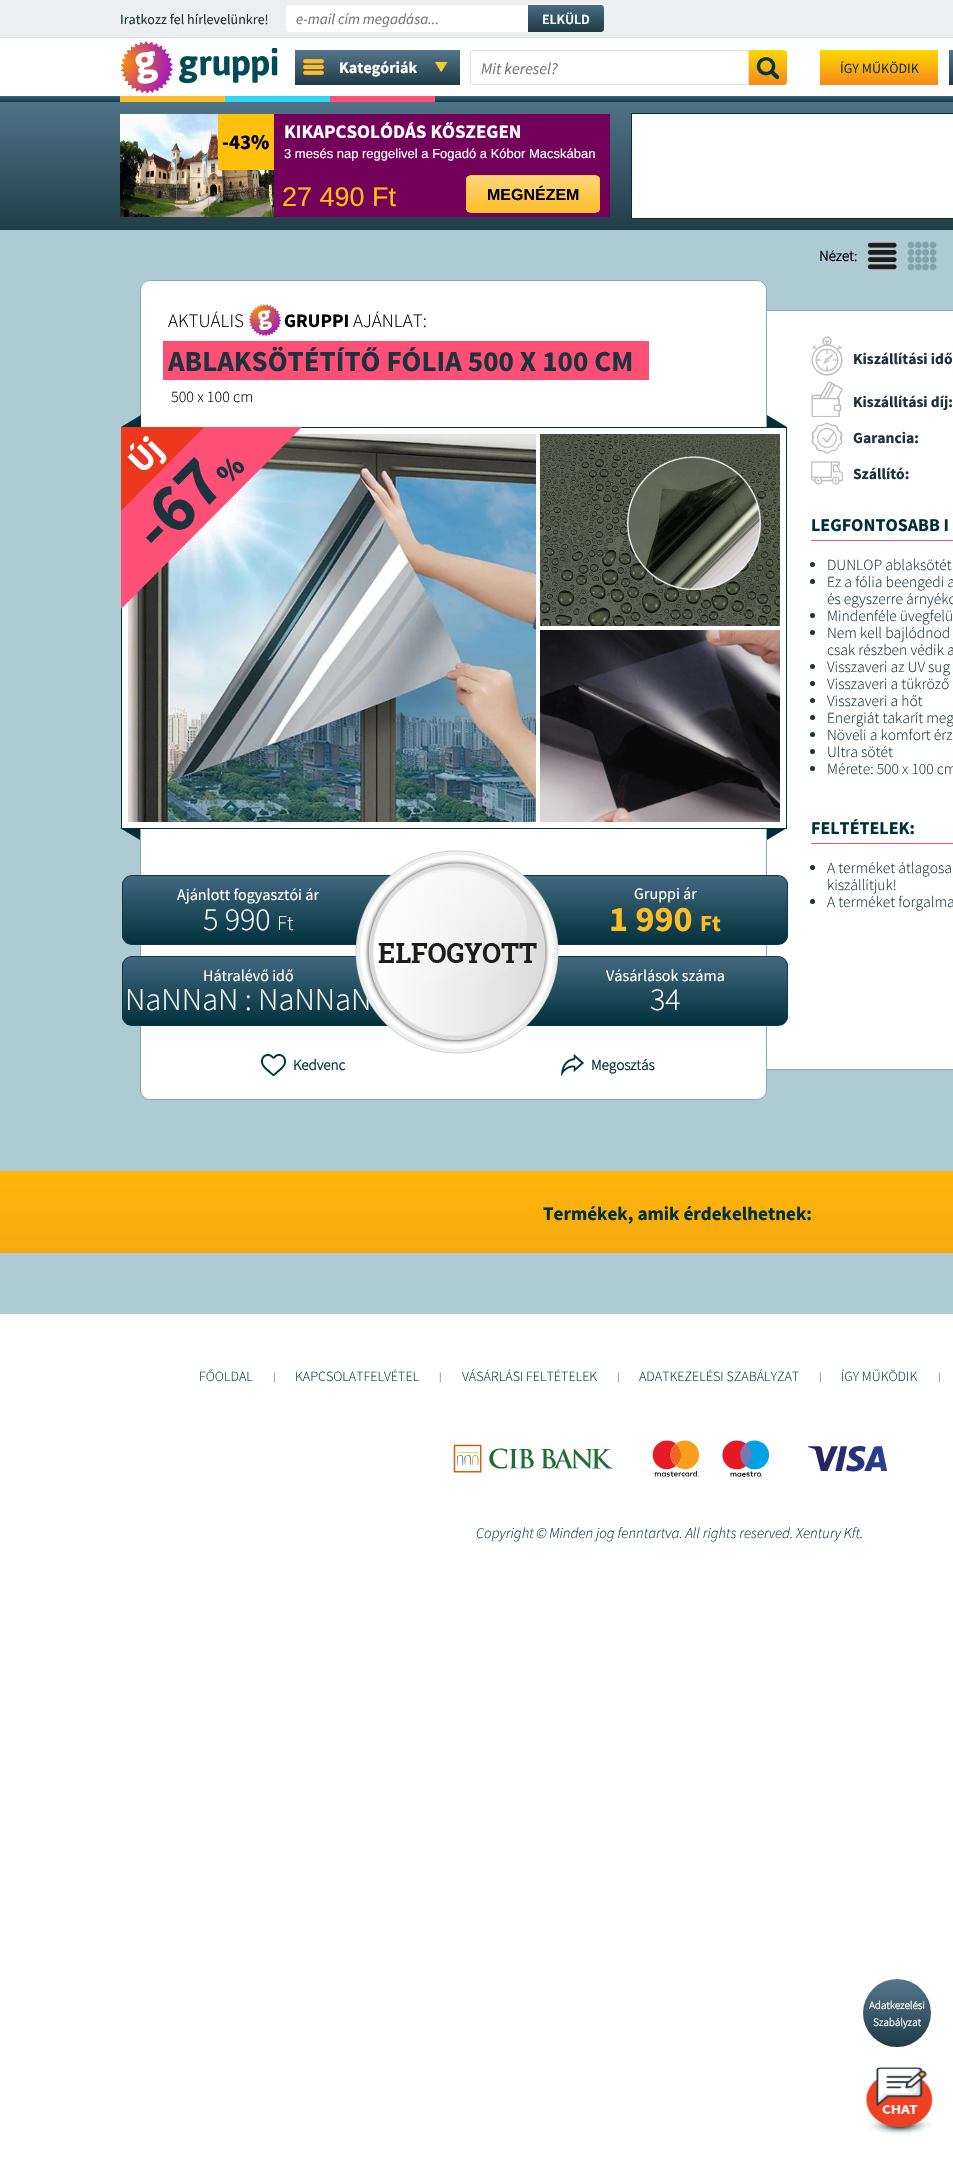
void draw(SkCanvas* canvas) {
  SkPaint paint;
  paint.setAntiAlias(true);
  auto face = [&](const char* family, int weight, float size, bool italic = false) {
    SkFontStyle style(weight, SkFontStyle::kNormal_Width,
      italic ? SkFontStyle::kItalic_Slant : SkFontStyle::kUpright_Slant);
    SkFont result(fontMgr->matchFamilyStyle(family, style), size);
    result.setSubpixel(true);
    return result;
  };
  auto paste = [&](const char* path, float x, float y, float w, float h) {
    auto image = SkImages::DeferredFromEncodedData(SkData::MakeFromFileName(path));
    canvas->drawImageRect(image, SkRect::MakeXYWH(x, y, w, h), SkSamplingOptions());
  };
  auto shape = [&](const char* data, bool evenOdd = false) {
    SkPath result = *SkParsePath::FromSVGString(data);
    if (evenOdd) result.setFillType(SkPathFillType::kEvenOdd);
    return result;
  };
  canvas->clear(0xffffffff);
  {
    const struct { float x, y, w, h; SkColor color; } items[] = {
      {0, 230, 953, 1084, 0xffaecad2},
      {0, 0, 953, 37, 0xffedeeef},
      {0, 37, 953, 1, 0xffd8dddf},
    };
    for (auto [x, y, w, h, color] : items) {
      paint.setColor(color);
      canvas->drawRect(SkRect::MakeXYWH(x, y, w, h), paint);
    }
  }
  paint.setColor(0xffffffff);
  canvas->drawPath(shape("M289 5H528V32H289C287.5 32 286 30.5 286 29V8C286 6.5 287.5 5 289 5Z"), paint);
  {
    const SkColor colors[] = {0xff486d84, 0xff1f3944};
    const float stops[] = {0, 1};
    const SkPoint ends[] = {{566, 5}, {566, 32}};
    paint.setShader(SkGradientShader::MakeLinear(ends, colors, stops, 2, SkTileMode::kClamp));
    paint.setAlpha(255);
  }
  canvas->drawPath(shape("M528 5H601C602.5 5 604 6.5 604 8V29C604 30.5 602.5 32 601 32H528Z"), paint);
  paste("img/1.png", 120, 41, 158, 52);
  {
    const SkColor colors[] = {0xff55778c, 0xff213a45};
    const float stops[] = {0, 1};
    const SkPoint ends[] = {{378, 50}, {378, 85}};
    paint.setShader(SkGradientShader::MakeLinear(ends, colors, stops, 2, SkTileMode::kClamp));
    paint.setAlpha(255);
  }
  canvas->drawRect(SkRect::MakeXYWH(295, 50, 165, 35), paint);
  paste("img/2.png", 303, 59, 21, 16);
  paste("img/3.png", 435, 62, 13, 10);
  paint.setStroke(true);
  paint.setStrokeWidth(1);
  paint.setShader(nullptr);
  paint.setColor(0xffe3ded8);
  canvas->drawPath(shape("M473 50.5H748.5V84.5H473C471.5 84.5 470.5 83.5 470.5 82V53C470.5 51.5 471.5 50.5 473 50.5Z"), paint);
  paint.setStroke(false);
  {
    const SkColor colors[] = {0xffffd800, 0xfff7891b};
    const float stops[] = {0, 1};
    const SkPoint ends[] = {{768, 50}, {768, 85}};
    paint.setShader(SkGradientShader::MakeLinear(ends, colors, stops, 2, SkTileMode::kClamp));
    paint.setAlpha(255);
  }
  canvas->drawPath(shape("M749 50H784C785.5 50 787 51.5 787 53V82C787 83.5 785.5 85 784 85H749Z"), paint);
  paste("img/4.png", 756, 57, 24, 22);
  {
    const SkColor colors[] = {0xffffd800, 0xfff7891b};
    const float stops[] = {0, 1};
    const SkPoint ends[] = {{879, 50}, {879, 85}};
    paint.setShader(SkGradientShader::MakeLinear(ends, colors, stops, 2, SkTileMode::kClamp));
    paint.setAlpha(255);
  }
  canvas->drawRect(SkRect::MakeXYWH(820, 50, 118, 35), paint);
  {
    const SkColor colors[] = {0xff55778c, 0xff213a45};
    const float stops[] = {0, 1};
    const SkPoint ends[] = {{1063, 50}, {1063, 85}};
    paint.setShader(SkGradientShader::MakeLinear(ends, colors, stops, 2, SkTileMode::kClamp));
    paint.setAlpha(255);
  }
  canvas->drawRect(SkRect::MakeXYWH(949, 50, 4, 35), paint);
  {
    const SkColor colors[] = {0xff43667b, 0xff0a3845};
    const float stops[] = {0, 1};
    const SkPoint ends[] = {{670, 96}, {670, 102}};
    paint.setShader(SkGradientShader::MakeLinear(ends, colors, stops, 2, SkTileMode::kClamp));
    paint.setAlpha(255);
  }
  canvas->drawRect(SkRect::MakeXYWH(0, 96, 953, 6), paint);
  paint.setShader(nullptr);
  {
    const struct { float x, y, w, h; SkColor color; } items[] = {
      {120, 96, 105, 6, 0xffffbc29},
      {225, 96, 105, 6, 0xff31d8f3},
      {330, 96, 105, 6, 0xffff5177},
    };
    for (auto [x, y, w, h, color] : items) {
      paint.setColor(color);
      canvas->drawRect(SkRect::MakeXYWH(x, y, w, h), paint);
    }
  }
  {
    const SkColor colors[] = {0xff507389, 0xff223d48};
    const float stops[] = {0, 1};
    const SkPoint ends[] = {{670, 102}, {670, 230}};
    paint.setShader(SkGradientShader::MakeLinear(ends, colors, stops, 2, SkTileMode::kClamp));
    paint.setAlpha(255);
  }
  canvas->drawRect(SkRect::MakeXYWH(0, 102, 953, 128), paint);
  paint.setShader(nullptr);
  paint.setColor(0xff730159);
  canvas->drawRect(SkRect::MakeXYWH(274, 114, 336, 103), paint);
  paste("img/5.png", 120, 114, 154, 103);
  paint.setColor(0xffffc00d);
  canvas->drawRect(SkRect::MakeXYWH(218, 114, 56, 56), paint);
  canvas->save();
  canvas->clipPath(shape("M471 175H595C598 175 600 177 600 180V208C600 211 598 213 595 213H471C468 213 466 211 466 208V180C466 177 468 175 471 175Z"), true);
  {
    const SkColor colors[] = {0xfffcd579, 0xffffbd2a};
    const float stops[] = {0, 1};
    const SkPoint ends[] = {{533, 176}, {533, 212}};
    paint.setShader(SkGradientShader::MakeLinear(ends, colors, stops, 2, SkTileMode::kClamp));
    paint.setAlpha(255);
  }
  canvas->drawRect(SkRect::MakeXYWH(466, 176, 134, 36), paint);
  canvas->restore();
  paint.setStroke(true);
  paint.setShader(nullptr);
  paint.setColor(0xffffc13a);
  canvas->drawRoundRect(SkRect::MakeXYWH(466.5f, 175.5f, 133, 37), 4.5f, 4.5f, paint);
  paint.setStroke(false);
  paint.setColor(0xffffffff);
  canvas->drawRect(SkRect::MakeXYWH(631.5f, 113.5f, 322, 105), paint);
  paint.setStroke(true);
  paint.setColor(0xff00303b);
  canvas->drawRect(SkRect::MakeXYWH(631.5f, 113.5f, 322, 105), paint);
  paste("img/6.png", 867, 242, 30, 28);
  paste("img/7.png", 907, 241, 30, 30);
  paint.setStroke(false);
  paint.setColor(0xffffffff);
  canvas->drawRoundRect(SkRect::MakeXYWH(140.5f, 280.5f, 626, 819), 9.5f, 9.5f, paint);
  paint.setStroke(true);
  paint.setColor(0xff7fabb9);
  canvas->drawRoundRect(SkRect::MakeXYWH(140.5f, 280.5f, 626, 819), 9.5f, 9.5f, paint);
  paste("img/8.png", 249, 304, 32, 32);
  paint.setStroke(false);
  paint.setColor(0xfffe4f76);
  canvas->drawRect(SkRect::MakeXYWH(163, 341, 486, 39), paint);
  paint.setColor(0xff002f3a);
  canvas->drawPath(shape("M141 427H121L141 415Z"), paint);
  paint.setColor(0xffffffff);
  canvas->drawRect(SkRect::MakeXYWH(767, 311, 186, 758), paint);
  paint.setColor(0xff7fabb9);
  canvas->drawPath(shape("M767 310H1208C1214 310 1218 314 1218 320V1060C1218 1066 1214 1070 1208 1070H767ZM767 311H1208C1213 311 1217 315 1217 320V1060C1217 1065 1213 1069 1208 1069H767Z", true), paint);
  paint.setColor(0xff002f3a);
  canvas->drawPath(shape("M787 427H767V415Z"), paint);
  paint.setColor(0xffffffff);
  canvas->drawRect(SkRect::MakeXYWH(122, 428, 645, 400), paint);
  paint.setStroke(true);
  paint.setColor(0xff00303b);
  canvas->drawRect(SkRect::MakeXYWH(121.5f, 427.5f, 665, 401), paint);
  paste("img/9.png", 128, 434, 652, 388);
  paint.setStroke(false);
  paint.setColor(0xffed3820);
  canvas->drawRect(SkRect::MakeXYWH(121, 427, 84, 84), paint);
  paint.setColor(0xff002f3a);
  canvas->drawPath(shape("M120 828H140V840Z"), paint);
  canvas->drawPath(shape("M767 828H787L767 840Z"), paint);
  canvas->save();
  canvas->clipPath(shape("M132 875H456V945H132C126.5 945 122 940.5 122 935V885C122 879.5 126.5 875 132 875Z"), true);
  {
    const SkColor colors[] = {0xff43687e, 0xff01323c};
    const float stops[] = {0, 1};
    const SkPoint ends[] = {{289, 876}, {289, 944}};
    paint.setShader(SkGradientShader::MakeLinear(ends, colors, stops, 2, SkTileMode::kClamp));
    paint.setAlpha(255);
  }
  canvas->drawRect(SkRect::MakeXYWH(122, 876, 268, 68), paint);
  canvas->restore();
  paint.setStroke(true);
  paint.setShader(nullptr);
  paint.setColor(0xff0d3b44);
  canvas->drawPath(shape("M132 875.5H455.5V944.5H132C127 944.5 122.5 940 122.5 935V885C122.5 880 127 875.5 132 875.5Z"), paint);
  canvas->save();
  canvas->clipPath(shape("M132 956H456V1026H132C126.5 1026 122 1021.5 122 1016V966C122 960.5 126.5 956 132 956Z"), true);
  paint.setStroke(false);
  {
    const SkColor colors[] = {0xff43687e, 0xff01323c};
    const float stops[] = {0, 1};
    const SkPoint ends[] = {{289, 957}, {289, 1025}};
    paint.setShader(SkGradientShader::MakeLinear(ends, colors, stops, 2, SkTileMode::kClamp));
    paint.setAlpha(255);
  }
  canvas->drawRect(SkRect::MakeXYWH(122, 957, 265, 68), paint);
  canvas->restore();
  paint.setStroke(true);
  paint.setShader(nullptr);
  paint.setColor(0xff0d3b44);
  canvas->drawPath(shape("M132 956.5H455.5V1025.5H132C127 1025.5 122.5 1021 122.5 1016V966C122.5 961 127 956.5 132 956.5Z"), paint);
  canvas->save();
  canvas->clipPath(shape("M454 875H778C783.5 875 788 879.5 788 885V935C788 940.5 783.5 945 778 945H454Z"), true);
  paint.setStroke(false);
  {
    const SkColor colors[] = {0xff44697f, 0xff02313c};
    const float stops[] = {0, 1};
    const SkPoint ends[] = {{621, 876}, {621, 944}};
    paint.setShader(SkGradientShader::MakeLinear(ends, colors, stops, 2, SkTileMode::kClamp));
    paint.setAlpha(255);
  }
  canvas->drawRect(SkRect::MakeXYWH(524, 876, 264, 68), paint);
  canvas->restore();
  paint.setStroke(true);
  paint.setShader(nullptr);
  paint.setColor(0xff0d3b44);
  canvas->drawPath(shape("M454.5 875.5H778C783 875.5 787.5 880 787.5 885V935C787.5 940 783 944.5 778 944.5H454.5Z"), paint);
  canvas->save();
  canvas->clipPath(shape("M454 956H778C783.5 956 788 960.5 788 966V1016C788 1021.5 783.5 1026 778 1026H454Z"), true);
  paint.setStroke(false);
  {
    const SkColor colors[] = {0xff44697f, 0xff02313c};
    const float stops[] = {0, 1};
    const SkPoint ends[] = {{621, 957}, {621, 1025}};
    paint.setShader(SkGradientShader::MakeLinear(ends, colors, stops, 2, SkTileMode::kClamp));
    paint.setAlpha(255);
  }
  canvas->drawRect(SkRect::MakeXYWH(527, 957, 261, 68), paint);
  canvas->restore();
  paint.setStroke(true);
  paint.setShader(nullptr);
  paint.setColor(0xff0d3b44);
  canvas->drawPath(shape("M454.5 956.5H778C783 956.5 787.5 961 787.5 966V1016C787.5 1021 783 1025.5 778 1025.5H454.5Z"), paint);
  paste("img/11.png", 261, 1054, 25, 22);
  paste("img/12.png", 561, 1054, 23, 22);
  paste("img/13.png", 811, 336, 32, 40);
  paste("img/14.png", 811, 381, 32, 36);
  paste("img/15.png", 811, 422, 32, 32);
  paste("img/16.png", 811, 461, 32, 24);
  paint.setStroke(false);
  paint.setColor(0xfffe4f76);
  canvas->drawRect(SkRect::MakeXYWH(811, 540, 142, 1), paint);
  paint.setColor(0xff1d323c);
  canvas->drawCircle(812.5f, 564.5f, 2.5f, paint);
  canvas->drawCircle(812.5f, 581.5f, 2.5f, paint);
  canvas->drawCircle(812.5f, 615.5f, 2.5f, paint);
  canvas->drawCircle(812.5f, 632.5f, 2.5f, paint);
  canvas->drawCircle(812.5f, 666.5f, 2.5f, paint);
  canvas->drawCircle(812.5f, 683.5f, 2.5f, paint);
  canvas->drawCircle(812.5f, 700.5f, 2.5f, paint);
  canvas->drawCircle(812.5f, 717.5f, 2.5f, paint);
  canvas->drawCircle(812.5f, 734.5f, 2.5f, paint);
  canvas->drawCircle(812.5f, 751.5f, 2.5f, paint);
  canvas->drawCircle(812.5f, 768.5f, 2.5f, paint);
  paint.setColor(0xfffe4f76);
  canvas->drawRect(SkRect::MakeXYWH(811, 843, 142, 1), paint);
  paint.setColor(0xff1d323c);
  canvas->drawCircle(812.5f, 867.5f, 2.5f, paint);
  canvas->drawCircle(812.5f, 901.5f, 2.5f, paint);
  {
    const SkColor colors[] = {0xffffb60a, 0xfff7a90f};
    const float stops[] = {0, 1};
    const SkPoint ends[] = {{670, 1171}, {670, 1253}};
    paint.setShader(SkGradientShader::MakeLinear(ends, colors, stops, 2, SkTileMode::kClamp));
    paint.setAlpha(255);
  }
  canvas->drawRect(SkRect::MakeXYWH(0, 1171, 953, 82), paint);
  paste("img/17.png", 453, 1440, 435, 37);
  {
    const SkColor colors[] = {0xff55778c, 0xff213a45};
    const float stops[] = {0, 1};
    const SkPoint ends[] = {{897, 1979}, {897, 2047}};
    paint.setShader(SkGradientShader::MakeLinear(ends, colors, stops, 2, SkTileMode::kClamp));
    paint.setAlpha(255);
  }
  canvas->drawCircle(897, 2013, 34, paint);
  paste("img/18.png", 866, 2067, 67, 68);
  auto f0 = face("Source Sans Pro", 400, 14);
  paint.setShader(nullptr);
  paint.setColor(0xff1d323c);
  canvas->drawString("Iratkozz fel hírlevelünkre!", 120, 24, f0, paint);
  auto f1 = face("Source Sans Pro", 400, 15, true);
  paint.setColor(0xff757575);
  canvas->drawString("e-mail cím megadása...", 296, 24, f1, paint);
  auto f2 = face("Source Sans Pro", 600, 14);
  paint.setColor(0xffffffff);
  canvas->drawString("ELKÜLD", 542, 24, f2, paint);
  auto f3 = face("Source Sans Pro", 700, 16);
  canvas->drawString("Kategóriák", 339, 73, f3, paint);
  auto f4 = face("Source Sans Pro", 400, 16, true);
  paint.setColor(0xff757575);
  canvas->drawString("Mit keresel?", 481, 74, f4, paint);
  paint.setColor(0xff1d323c);
  canvas->drawString("ÍGY MŰKÖDIK", 840, 73, f0, paint);
  auto f5 = face("Source Sans Pro", 700, 21);
  paint.setColor(0xff000000);
  canvas->drawString("-43", 222, 149, f5, paint);
  auto f6 = face("Source Sans Pro", 900, 21);
  canvas->drawString("%", 251, 149, f6, paint);
  canvas->save();
  canvas->clipRect(SkRect::MakeXYWH(284, 117, 245, 21));
  auto f7 = face("Source Sans Pro", 700, 19);
  paint.setColor(0xffffffff);
  canvas->drawString("KIKAPCSOLÓDÁS KŐSZEGEN", 284, 138, f7, paint);
  canvas->restore();
  auto f8 = face("Liberation Sans", 400, 13);
  canvas->drawString("3 mesés nap reggelivel a Fogadó a Kóbor Macskában", 284, 158, f8, paint);
  auto f9 = face("Liberation Sans", 400, 27);
  paint.setColor(0xffffc00d);
  canvas->drawString("27 490 Ft", 282, 206, f9, paint);
  auto f10 = face("Liberation Sans", 700, 16);
  paint.setColor(0xff000000);
  canvas->drawString("MEGNÉZEM", 487, 200, f10, paint);
  auto f11 = face("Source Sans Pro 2", 700, 15);
  canvas->drawString("Nézet:", 819, 261, f11, paint);
  auto f12 = face("Source Sans Pro", 300, 19);
  canvas->drawString("AKTUÁLIS", 168, 327, f12, paint);
  canvas->drawString("GRUPPI", 284, 327, f7, paint);
  canvas->drawString("AJÁNLAT:", 353, 327, f12, paint);
  auto f13 = face("Source Sans Pro", 700, 29);
  paint.setColor(0xff1d323c);
  canvas->drawString("ABLAKSÖTÉTÍTŐ FÓLIA 500 X 100 CM", 168, 371, f13, paint);
  auto f14 = face("Source Sans Pro", 300, 16);
  paint.setColor(0xff000000);
  canvas->drawString("500 x 100 cm", 171, 402, f14, paint);
  auto f15 = face("Source Sans Pro", 700, 35);
  paint.setColor(0xffffffff);
  canvas->save();
  canvas->rotate(-45, 142, 475);
  canvas->drawString("Új", 142, 475, f15, paint);
  canvas->restore();
  canvas->save();
  canvas->clipRect(SkRect::MakeXYWH(121, 427, 667, 451));
  paint.setColor(0xfffe4f76);
  canvas->drawPath(shape("M120 610V512L268 363L317 412Z"), paint);
  canvas->restore();
  auto f16 = face("Source Sans Pro", 700, 70);
  paint.setColor(0xff1d323c);
  canvas->save();
  canvas->rotate(-45, 159, 555);
  canvas->drawString("-67", 159, 555, f16, paint);
  canvas->restore();
  auto f17 = face("Source Sans Pro", 900, 30);
  canvas->save();
  canvas->rotate(-45, 228, 486);
  canvas->drawString("%", 228, 486, f17, paint);
  canvas->restore();
  auto f18 = face("Source Sans Pro", 400, 16);
  paint.setColor(0xffffffff);
  canvas->drawString("Ajánlott fogyasztói ár", 177, 900, f18, paint);
  auto f19 = face("Source Sans Pro", 300, 32);
  canvas->drawString("5 990", 203, 930, f19, paint);
  auto f20 = face("Source Sans Pro", 300, 21);
  canvas->drawString("Ft", 277, 930, f20, paint);
  canvas->drawString("Hátralévő idő", 203, 981, f18, paint);
  canvas->drawString("NaNNaN : NaNNaN", 125, 1010, f19, paint);
  paste("img/10.png", 355, 850, 204, 204);
  canvas->drawString("Gruppi ár", 634, 899, f18, paint);
  auto f21 = face("Source Sans Pro", 700, 36);
  paint.setColor(0xffffbc29);
  canvas->drawString("1 990", 609, 931, f21, paint);
  auto f22 = face("Source Sans Pro", 700, 23);
  canvas->drawString("Ft", 700, 931, f22, paint);
  paint.setColor(0xffffffff);
  canvas->drawString("Vásárlások száma", 606, 981, f18, paint);
  canvas->drawString("34", 650, 1010, f19, paint);
  paint.setColor(0xff00303a);
  canvas->drawString("Kedvenc", 293, 1070, f11, paint);
  canvas->drawString("Megosztás", 591, 1070, f11, paint);
  auto f23 = face("Source Sans Pro", 700, 15.5f);
  paint.setColor(0xff1d323c);
  {
    const struct { const char* s; float x, y; } items[] = {
      {"Kiszállítási idő", 853, 364},
      {"Kiszállítási díj:", 853, 407},
      {"Garancia:", 853, 443},
      {"Szállító:", 853, 479},
    };
    for (auto [s, x, y] : items) {
      canvas->drawString(s, x, y, f23, paint);
    }
  }
  auto f24 = face("Source Sans Pro", 700, 18);
  paint.setColor(0xff00303a);
  canvas->drawString("LEGFONTOSABB I", 811, 531, f24, paint);
  auto f25 = face("Source Sans Pro", 300, 15.5f);
  paint.setColor(0xff1d323c);
  {
    const struct { const char* s; float x, y; } items[] = {
      {"DUNLOP ablaksötét", 827, 570},
      {"Ez a fólia beengedi a", 827, 587},
      {"és egyszerre árnyéko", 827, 604},
      {"Mindenféle üvegfelü", 827, 621},
      {"Nem kell bajlódnod", 827, 638},
      {"csak részben védik a", 827, 655},
      {"Visszaveri az UV sug", 827, 672},
      {"Visszaveri a tükröző", 827, 689},
      {"Visszaveri a hőt", 827, 706},
      {"Energiát takarít meg", 827, 723},
      {"Növeli a komfort érz", 827, 740},
      {"Ultra sötét", 827, 757},
      {"Mérete: 500 x 100 cm", 827, 774},
    };
    for (auto [s, x, y] : items) {
      canvas->drawString(s, x, y, f25, paint);
    }
  }
  paint.setColor(0xff00303a);
  canvas->drawString("FELTÉTELEK:", 811, 834, f24, paint);
  paint.setColor(0xff1d323c);
  {
    const struct { const char* s; float x, y; } items[] = {
      {"A terméket átlagosa", 827, 873},
      {"kiszállítjuk!", 827, 890},
      {"A terméket forgalma", 827, 907},
    };
    for (auto [s, x, y] : items) {
      canvas->drawString(s, x, y, f25, paint);
    }
  }
  paint.setColor(0xff00303a);
  canvas->drawString("Termékek, amik érdekelhetnek:", 543, 1220, f7, paint);
  auto f26 = face("Source Sans Pro", 300, 14);
  paint.setColor(0xff003844);
  canvas->drawString("FŐOLDAL", 199, 1381, f26, paint);
  auto f27 = face("Source Sans Pro", 300, 10);
  canvas->drawString("|", 273, 1380, f27, paint);
  canvas->drawString("KAPCSOLATFELVÉTEL", 295, 1381, f26, paint);
  canvas->drawString("|", 439, 1380, f27, paint);
  canvas->drawString("VÁSÁRLÁSI FELTÉTELEK", 462, 1381, f26, paint);
  canvas->drawString("|", 617, 1380, f27, paint);
  canvas->drawString("ADATKEZELÉSI SZABÁLYZAT", 639, 1381, f26, paint);
  canvas->drawString("|", 819, 1380, f27, paint);
  canvas->drawString("ÍGY MŰKÖDIK", 841, 1381, f26, paint);
  canvas->drawString("|", 938, 1380, f27, paint);
  auto f28 = face("Source Sans Pro", 300, 15, true);
  canvas->drawString("Copyright © Minden jog fenntartva. All rights reserved. Xentury Kft.", 476, 1538, f28, paint);
  auto f29 = face("Source Sans Pro 2", 700, 11);
  paint.setColor(0xffffffff);
  canvas->drawString("Adatkezelési", 869, 2009, f29, paint);
  canvas->drawString("Szabályzat", 873, 2026, f29, paint);
}
